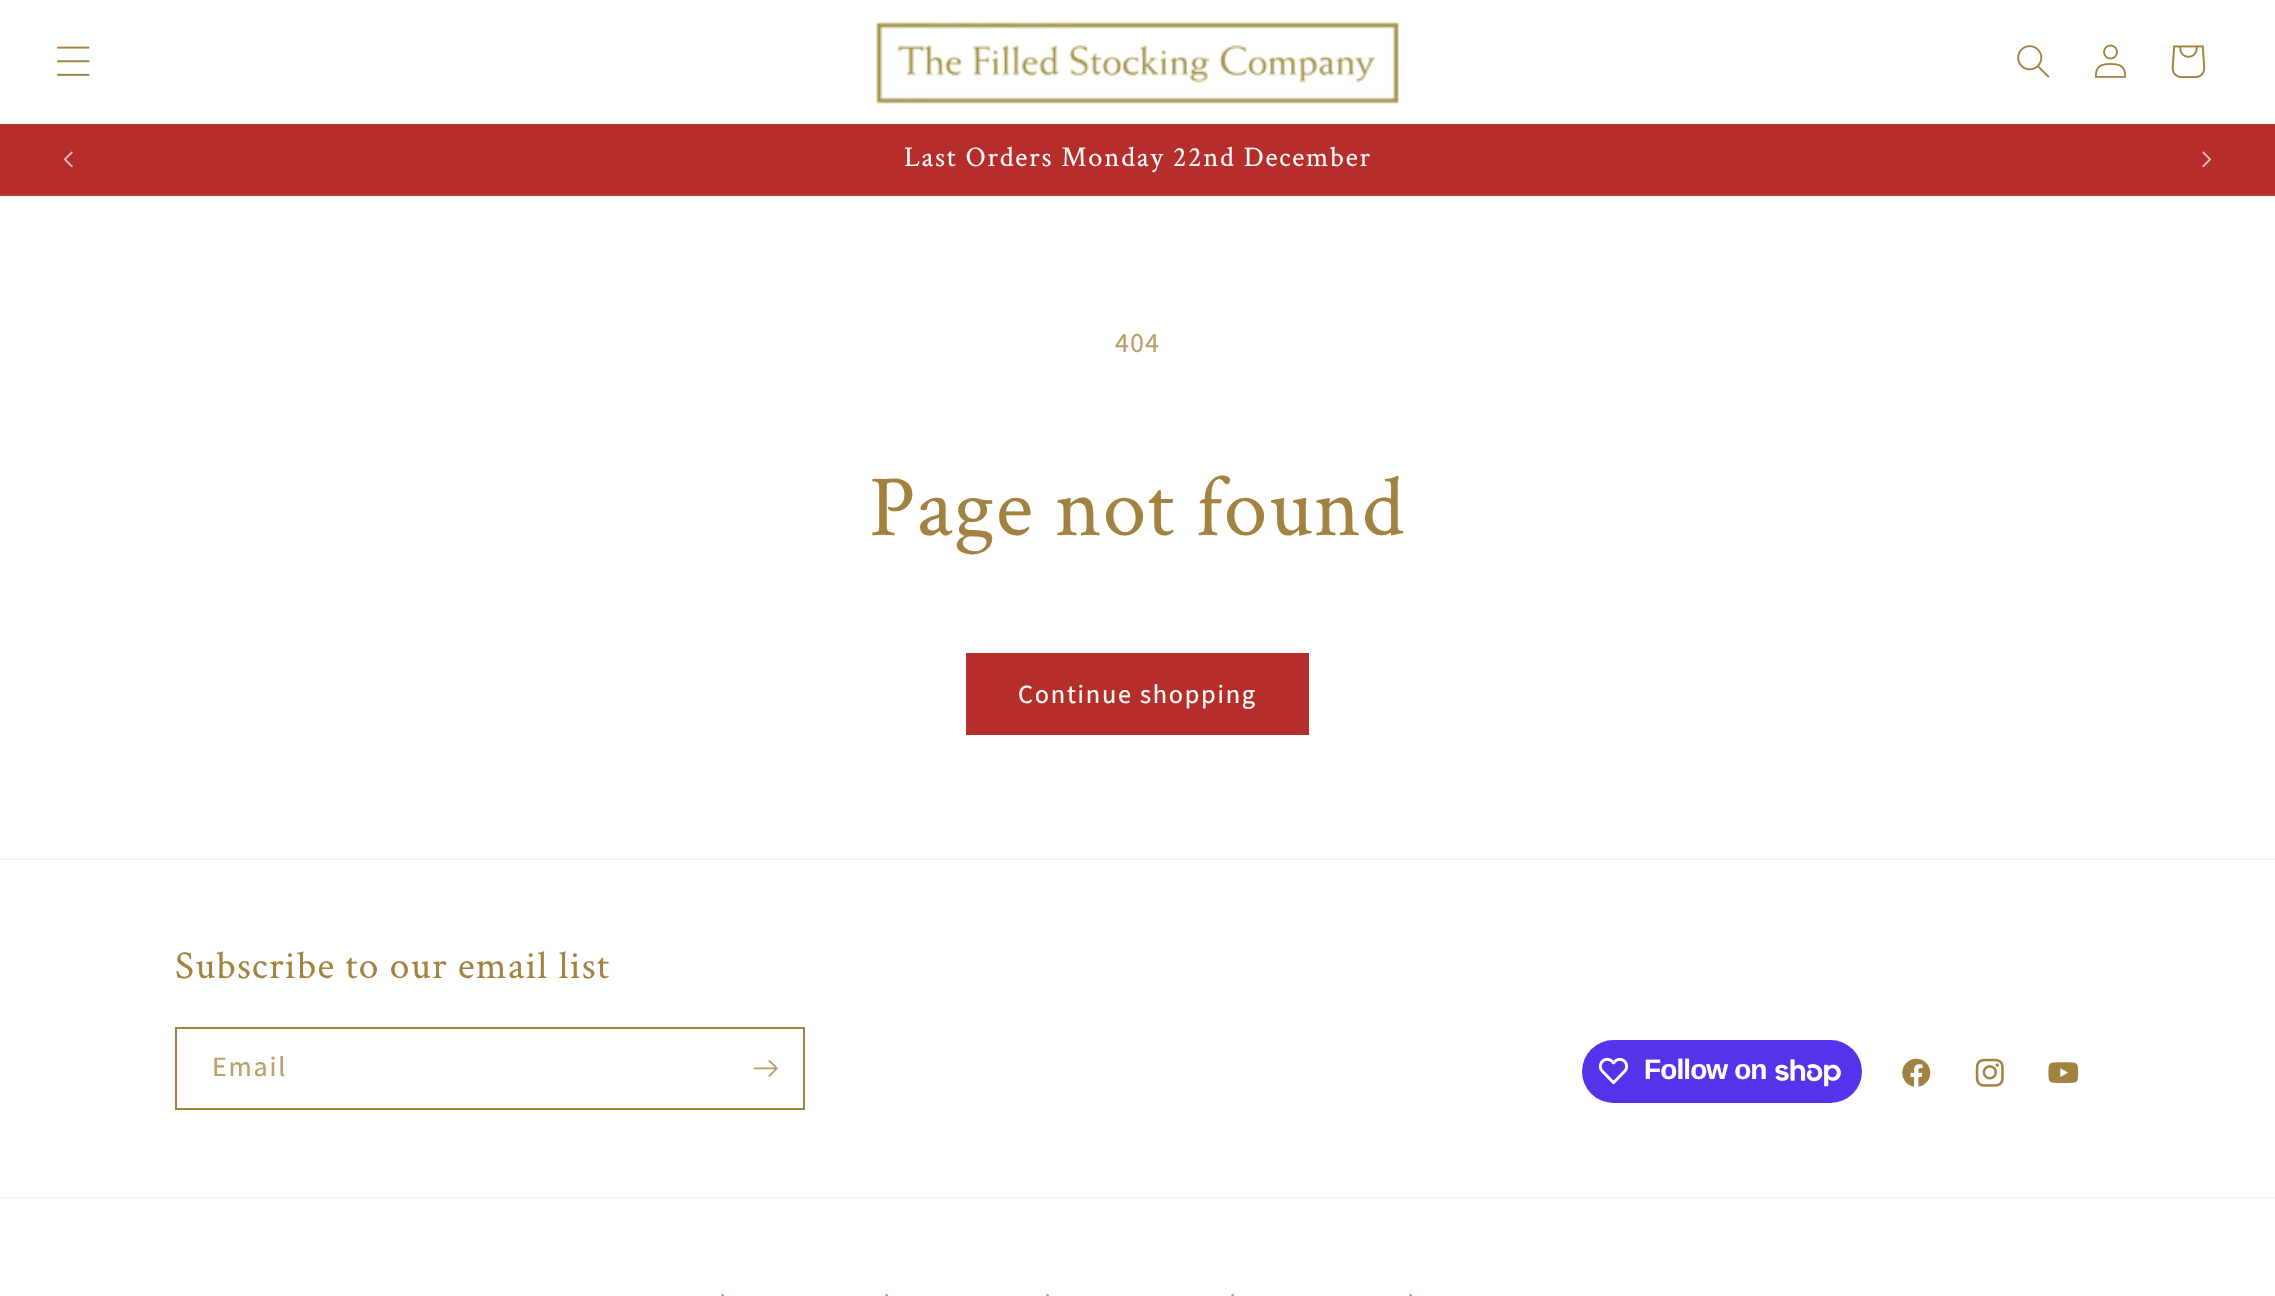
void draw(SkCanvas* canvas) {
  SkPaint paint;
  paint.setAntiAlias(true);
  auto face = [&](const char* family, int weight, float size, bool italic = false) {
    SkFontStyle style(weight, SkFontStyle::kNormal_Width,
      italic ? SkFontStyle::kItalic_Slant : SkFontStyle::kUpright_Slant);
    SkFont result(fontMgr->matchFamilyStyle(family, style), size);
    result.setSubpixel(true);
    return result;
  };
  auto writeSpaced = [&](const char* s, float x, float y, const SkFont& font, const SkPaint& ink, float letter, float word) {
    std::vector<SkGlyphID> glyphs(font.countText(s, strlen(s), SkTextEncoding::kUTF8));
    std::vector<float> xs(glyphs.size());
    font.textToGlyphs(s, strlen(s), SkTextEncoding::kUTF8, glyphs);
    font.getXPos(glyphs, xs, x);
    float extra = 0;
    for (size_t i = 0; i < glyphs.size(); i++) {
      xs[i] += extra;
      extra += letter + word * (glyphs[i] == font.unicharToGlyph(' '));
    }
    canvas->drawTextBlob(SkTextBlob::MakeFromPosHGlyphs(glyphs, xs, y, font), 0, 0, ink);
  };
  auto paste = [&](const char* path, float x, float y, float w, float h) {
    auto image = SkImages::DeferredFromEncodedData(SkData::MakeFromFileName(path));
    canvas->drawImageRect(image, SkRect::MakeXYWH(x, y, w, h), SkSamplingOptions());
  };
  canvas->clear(0xffffffff);
  paint.setColor(0xfff7f5f0);
  canvas->drawRect(SkRect::MakeXYWH(0, 123, 2275, 1), paint);
  paste("img/1.png", 57, 46, 33, 30);
  paste("img/2.png", 876, 22, 523, 82);
  paste("img/3.png", 2017, 45, 33, 33);
  paste("img/4.png", 2094, 44, 33, 34);
  paste("img/5.png", 2171, 45, 35, 34);
  {
    const struct { float x, y, w, h; SkColor color; } items[] = {
      {0, 125, 2275, 69, 0xffb62e2c},
      {0, 124, 2275, 1, 0xffb4352e},
      {0, 194, 2275, 2, 0xffbc3e3c},
    };
    for (auto [x, y, w, h, color] : items) {
      paint.setColor(color);
      canvas->drawRect(SkRect::MakeXYWH(x, y, w, h), paint);
    }
  }
  paste("img/6.png", 64, 151, 9, 17);
  paste("img/7.png", 2202, 151, 9, 17);
  paint.setColor(0xffb62e2c);
  canvas->drawRect(SkRect::MakeXYWH(966, 653, 343, 82), paint);
  paint.setColor(0xfff7f5f0);
  canvas->drawRect(SkRect::MakeXYWH(0, 858, 2275, 2), paint);
  paint.setStroke(true);
  paint.setStrokeWidth(2);
  paint.setColor(0xffa18240);
  canvas->drawRect(SkRect::MakeXYWH(176, 1028, 628, 81), paint);
  paste("img/8.png", 753, 1060, 25, 17);
  paint.setStroke(false);
  paint.setColor(0xff5433eb);
  canvas->drawRoundRect(SkRect::MakeXYWH(1582, 1040, 280, 63), 31.5f, 31.5f, paint);
  paste("img/9.png", 1598, 1057, 31, 28);
  paste("img/10.png", 1775, 1059, 66, 28);
  paste("img/11.png", 1902, 1058, 29, 29);
  paste("img/12.png", 1975, 1058, 29, 29);
  paste("img/13.png", 2048, 1062, 31, 22);
  paint.setColor(0xfff7f5f0);
  canvas->drawRect(SkRect::MakeXYWH(0, 1197, 2275, 2), paint);
  auto f0 = face("Crimson Text", 400, 28.5f);
  paint.setColor(0xfffcfaf7);
  writeSpaced("Last Orders Monday 22nd December", 904, 166, f0, paint, 1.75f, 0);
  auto f1 = face("Assistant", 500, 28);
  paint.setColor(0xffb9a170);
  writeSpaced("404", 1115, 352, f1, paint, 1, 0);
  auto f2 = face("Crimson Text", 400, 87.5f);
  paint.setColor(0xffa18240);
  writeSpaced("Page not found", 869, 535, f2, paint, 1.3f, 0);
  auto f3 = face("Assistant", 500, 26.25f);
  paint.setColor(0xfffcfaf7);
  writeSpaced("Continue shopping", 1018, 703, f3, paint, 1.75f, 0);
  auto f4 = face("Crimson Text", 400, 39.4f);
  paint.setColor(0xffa18240);
  writeSpaced("Subscribe to our email list", 175, 978, f4, paint, 1.3f, 0);
  paint.setColor(0xffb9a170);
  writeSpaced("Email", 212, 1076, f1, paint, 1.75f, 0);
  auto f5 = face("Liberation Sans", 700, 28);
  paint.setColor(0xffffffff);
  writeSpaced("Follow on", 1644, 1079, f5, paint, -0.9f, 0);
  auto f6 = face("Assistant", 500, 21);
  paint.setColor(0xffb9a170);
  {
    const struct { const char* s; float x, y; } items[] = {
      {"·", 720, 1302},
      {"·", 884, 1302},
      {"·", 1045, 1302},
      {"·", 1230, 1302},
      {"·", 1408, 1302},
    };
    for (auto [s, x, y] : items) {
      writeSpaced(s, x, y, f6, paint, 1, 0);
    }
  }
}
